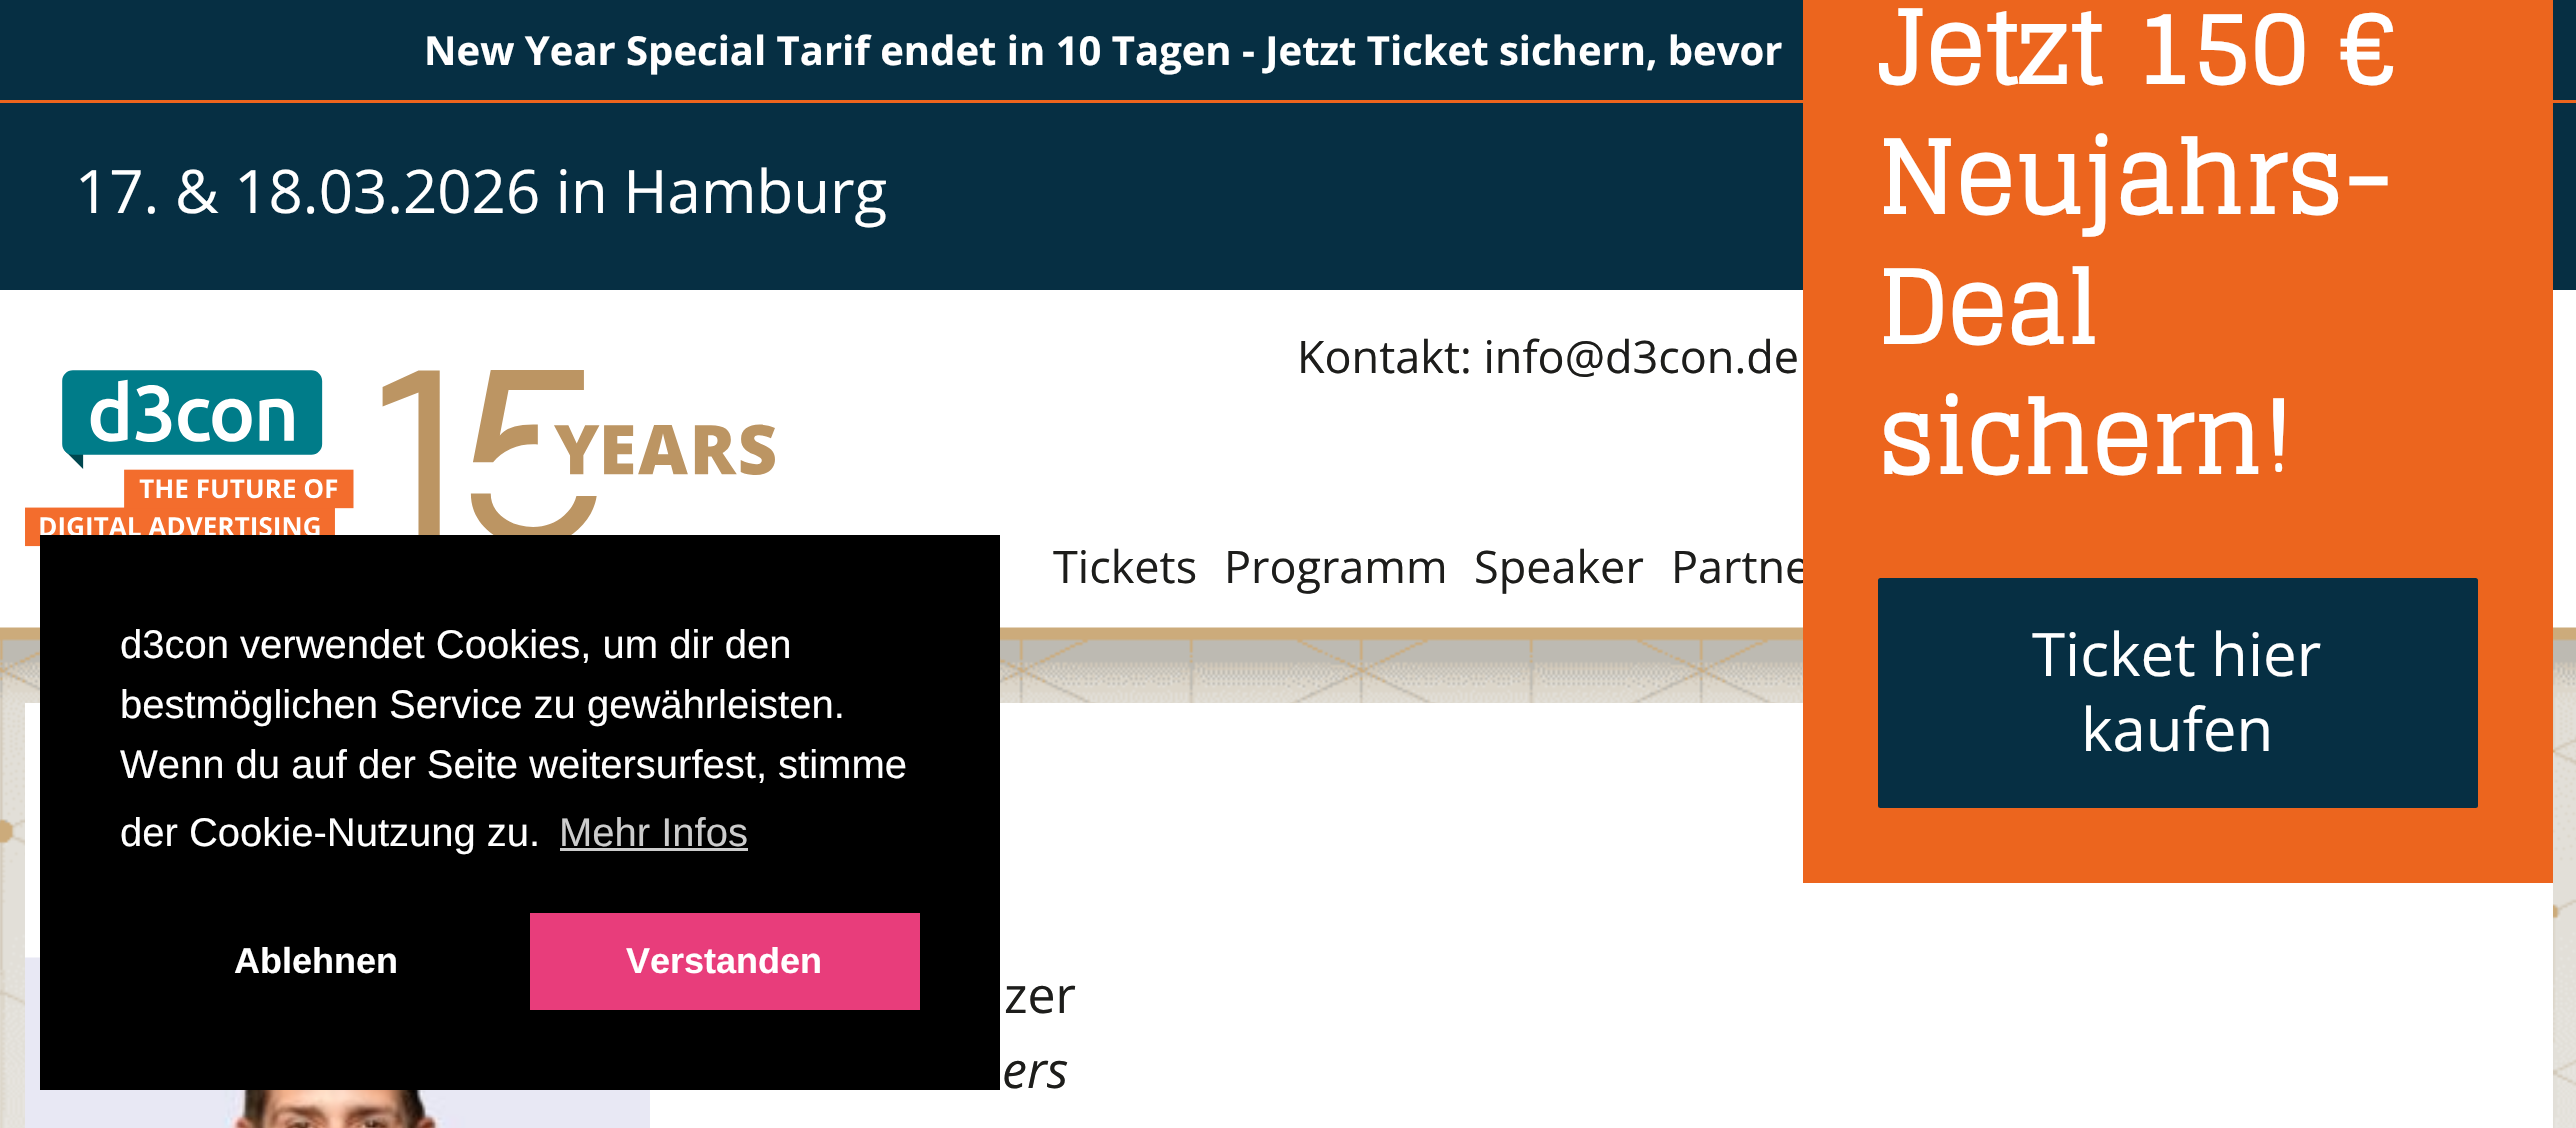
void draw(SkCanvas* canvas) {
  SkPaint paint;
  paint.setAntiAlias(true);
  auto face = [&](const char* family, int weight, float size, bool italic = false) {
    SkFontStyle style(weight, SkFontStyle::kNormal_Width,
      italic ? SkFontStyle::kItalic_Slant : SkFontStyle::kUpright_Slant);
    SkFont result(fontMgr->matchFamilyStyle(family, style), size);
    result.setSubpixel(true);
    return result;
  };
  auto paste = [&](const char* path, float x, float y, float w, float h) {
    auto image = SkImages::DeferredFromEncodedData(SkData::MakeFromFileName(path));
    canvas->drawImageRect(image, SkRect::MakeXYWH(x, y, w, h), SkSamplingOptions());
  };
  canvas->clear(0xff062f43);
  paint.setColor(0xffec651e);
  canvas->drawRect(SkRect::MakeXYWH(0, 100, 2576, 3), paint);
  paint.setColor(0xffffffff);
  canvas->drawRect(SkRect::MakeXYWH(0, 290, 2576, 338), paint);
  paste("img/1.png", 25, 370, 750, 177);
  paste("img/2.png", 0, 627, 2576, 501);
  canvas->drawRect(SkRect::MakeXYWH(25, 703, 2528, 425), paint);
  paste("img/3.png", 25, 957, 625, 171);
  {
    const struct { float x, y, w, h; SkColor color; } items[] = {
      {40, 535, 960, 555, 0xff000000},
      {560, 848, 188, 3, 0xffcccccc},
      {530, 913, 390, 97, 0xffe83d7b},
    };
    for (auto [x, y, w, h, color] : items) {
      paint.setColor(color);
      canvas->drawRect(SkRect::MakeXYWH(x, y, w, h), paint);
    }
  }
  auto f0 = face("Open Sans", 700, 40);
  paint.setColor(0xffffffff);
  canvas->drawString("New Year Special Tarif endet in 10 Tagen - Jetzt Ticket sichern, bevor", 424, 65, f0, paint);
  auto f1 = face("Open Sans", 400, 60);
  canvas->drawString("17. & 18.03.2026 in Hamburg", 75, 213, f1, paint);
  auto f2 = face("Open Sans", 400, 45);
  paint.setColor(0xff1d1d1b);
  {
    const struct { const char* s; float x, y; } items[] = {
      {"Kontakt: info@d3con.de", 1297, 373},
      {"Tickets", 1053, 583},
      {"Programm", 1224, 583},
      {"Speaker", 1474, 583},
      {"Partne", 1671, 583},
    };
    for (auto [s, x, y] : items) {
      canvas->drawString(s, x, y, f2, paint);
    }
  }
  paint.setColor(0xffec651e);
  canvas->drawRect(SkRect::MakeXYWH(1803, 0, 750, 883), paint);
  paint.setColor(0xff062f43);
  canvas->drawRoundRect(SkRect::MakeXYWH(1878, 578, 600, 230), 2.5f, 2.5f, paint);
  paint.setColor(0xffffffff);
  canvas->drawString("kaufen", 2081, 751, f1, paint);
  canvas->drawString("Ticket hier", 2032, 676, f1, paint);
  auto f3 = face("Glegoo", 700, 100);
  {
    const struct { const char* s; float x, y; } items[] = {
      {"sichern!", 1877, 474},
      {"Deal", 1877, 344},
      {"Neujahrs-", 1877, 214},
      {"Jetzt 150 €", 1877, 84},
    };
    for (auto [s, x, y] : items) {
      canvas->drawString(s, x, y, f3, paint);
    }
  }
  auto f4 = face("Liberation Sans", 400, 40);
  {
    const struct { const char* s; float x, y; } items[] = {
      {"d3con verwendet Cookies, um dir den", 120, 658},
      {"bestmöglichen Service zu gewährleisten.", 120, 718},
      {"Wenn du auf der Seite weitersurfest, stimme", 120, 778},
      {"der Cookie-Nutzung zu.", 120, 846},
    };
    for (auto [s, x, y] : items) {
      canvas->drawString(s, x, y, f4, paint);
    }
  }
  paint.setColor(0xffcccccc);
  canvas->drawString("Mehr Infos", 559, 846, f4, paint);
  auto f5 = face("Liberation Sans", 700, 36);
  paint.setColor(0xffffffff);
  canvas->drawString("Ablehnen", 234, 973, f5, paint);
  canvas->drawString("Verstanden", 626, 973, f5, paint);
  auto f6 = face("Open Sans", 400, 50);
  paint.setColor(0xff1d1d1b);
  canvas->drawString("zer", 1004, 1013, f6, paint);
  auto f7 = face("Open Sans", 400, 50, true);
  canvas->drawString("ers", 1002, 1088, f7, paint);
}
